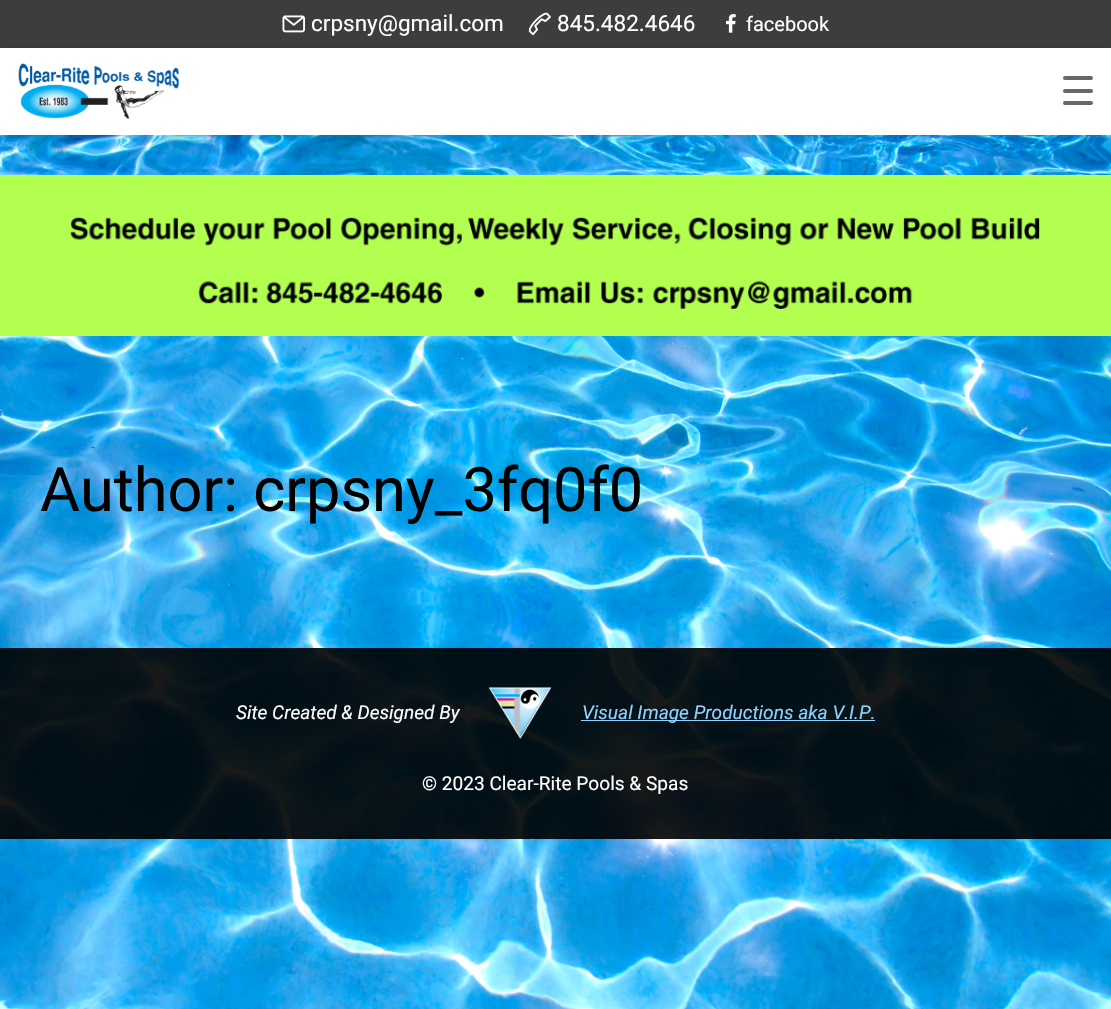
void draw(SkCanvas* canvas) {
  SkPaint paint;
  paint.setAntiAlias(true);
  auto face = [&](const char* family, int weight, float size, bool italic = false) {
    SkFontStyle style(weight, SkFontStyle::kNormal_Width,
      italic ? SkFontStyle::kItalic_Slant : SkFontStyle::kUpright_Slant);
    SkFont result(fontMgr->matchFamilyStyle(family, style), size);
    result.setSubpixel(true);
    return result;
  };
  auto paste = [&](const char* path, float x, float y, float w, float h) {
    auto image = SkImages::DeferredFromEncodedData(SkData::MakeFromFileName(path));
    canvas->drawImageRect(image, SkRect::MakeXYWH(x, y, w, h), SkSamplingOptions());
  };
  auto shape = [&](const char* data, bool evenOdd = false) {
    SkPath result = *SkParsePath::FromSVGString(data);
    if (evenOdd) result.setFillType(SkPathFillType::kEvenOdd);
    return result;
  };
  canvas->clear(0xffffffff);
  paste("img/5.png", 0, 135, 1111, 874);
  canvas->save();
  canvas->clipPath(shape("M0 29H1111V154H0ZM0 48H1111V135H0Z", true), true);
  paint.setColor(0x1a000000);
  paint.setMaskFilter(SkMaskFilter::MakeBlur(kNormal_SkBlurStyle, 6));
  canvas->drawRect(SkRect::MakeXYWH(0, 48, 1111, 87), paint);
  paint.setMaskFilter(nullptr);
  canvas->restore();
  paint.setColor(0xc2000000);
  canvas->drawRect(SkRect::MakeXYWH(0, 0, 1111, 48), paint);
  paste("img/1.png", 282, 15, 23, 18);
  paste("img/2.png", 528, 12, 23, 24);
  paste("img/3.png", 726, 14, 10, 19);
  paste("img/4.png", 18, 63, 161, 56);
  paint.setColor(0xff686868);
  canvas->drawRoundRect(SkRect::MakeXYWH(1063, 89, 30, 4), 2, 2, paint);
  canvas->drawRoundRect(SkRect::MakeXYWH(1063, 76, 30, 4), 2, 2, paint);
  canvas->drawRoundRect(SkRect::MakeXYWH(1063, 101, 30, 4), 2, 2, paint);
  paint.setColor(0xffb3ff50);
  canvas->drawRect(SkRect::MakeXYWH(0, 175, 1111, 161), paint);
  paste("img/6.png", 70, 217, 970, 92);
  paint.setColor(0xe6000000);
  canvas->drawRect(SkRect::MakeXYWH(0, 648, 1111, 191), paint);
  paste("img/7.png", 488, 687, 64, 52);
  paint.setColor(0xff8ed1fc);
  canvas->drawRect(SkRect::MakeXYWH(581, 720, 294, 1), paint);
  auto f0 = face("Roboto", 400, 22.5f);
  paint.setColor(0xffffffff);
  canvas->drawString("crpsny@gmail.com", 311, 31, f0, paint);
  canvas->drawString("845.482.4646", 557, 31, f0, paint);
  auto f1 = face("Roboto", 400, 20);
  canvas->drawString("facebook", 746, 31, f1, paint);
  auto f2 = face("Roboto", 400, 61.25f);
  paint.setColor(0xff000000);
  canvas->drawString("Author: crpsny_3fq0f0", 40, 511, f2, paint);
  auto f3 = face("Roboto", 400, 19.1f, true);
  paint.setColor(0xffffffff);
  canvas->drawString("Site Created & Designed By", 236, 719, f3, paint);
  paint.setColor(0xff8ed1fc);
  canvas->drawString("Visual Image Productions aka V.I.P.", 582, 719, f3, paint);
  auto f4 = face("Roboto", 400, 19.1f);
  paint.setColor(0xffffffff);
  canvas->drawString("© 2023 Clear-Rite Pools & Spas", 422, 790, f4, paint);
}
